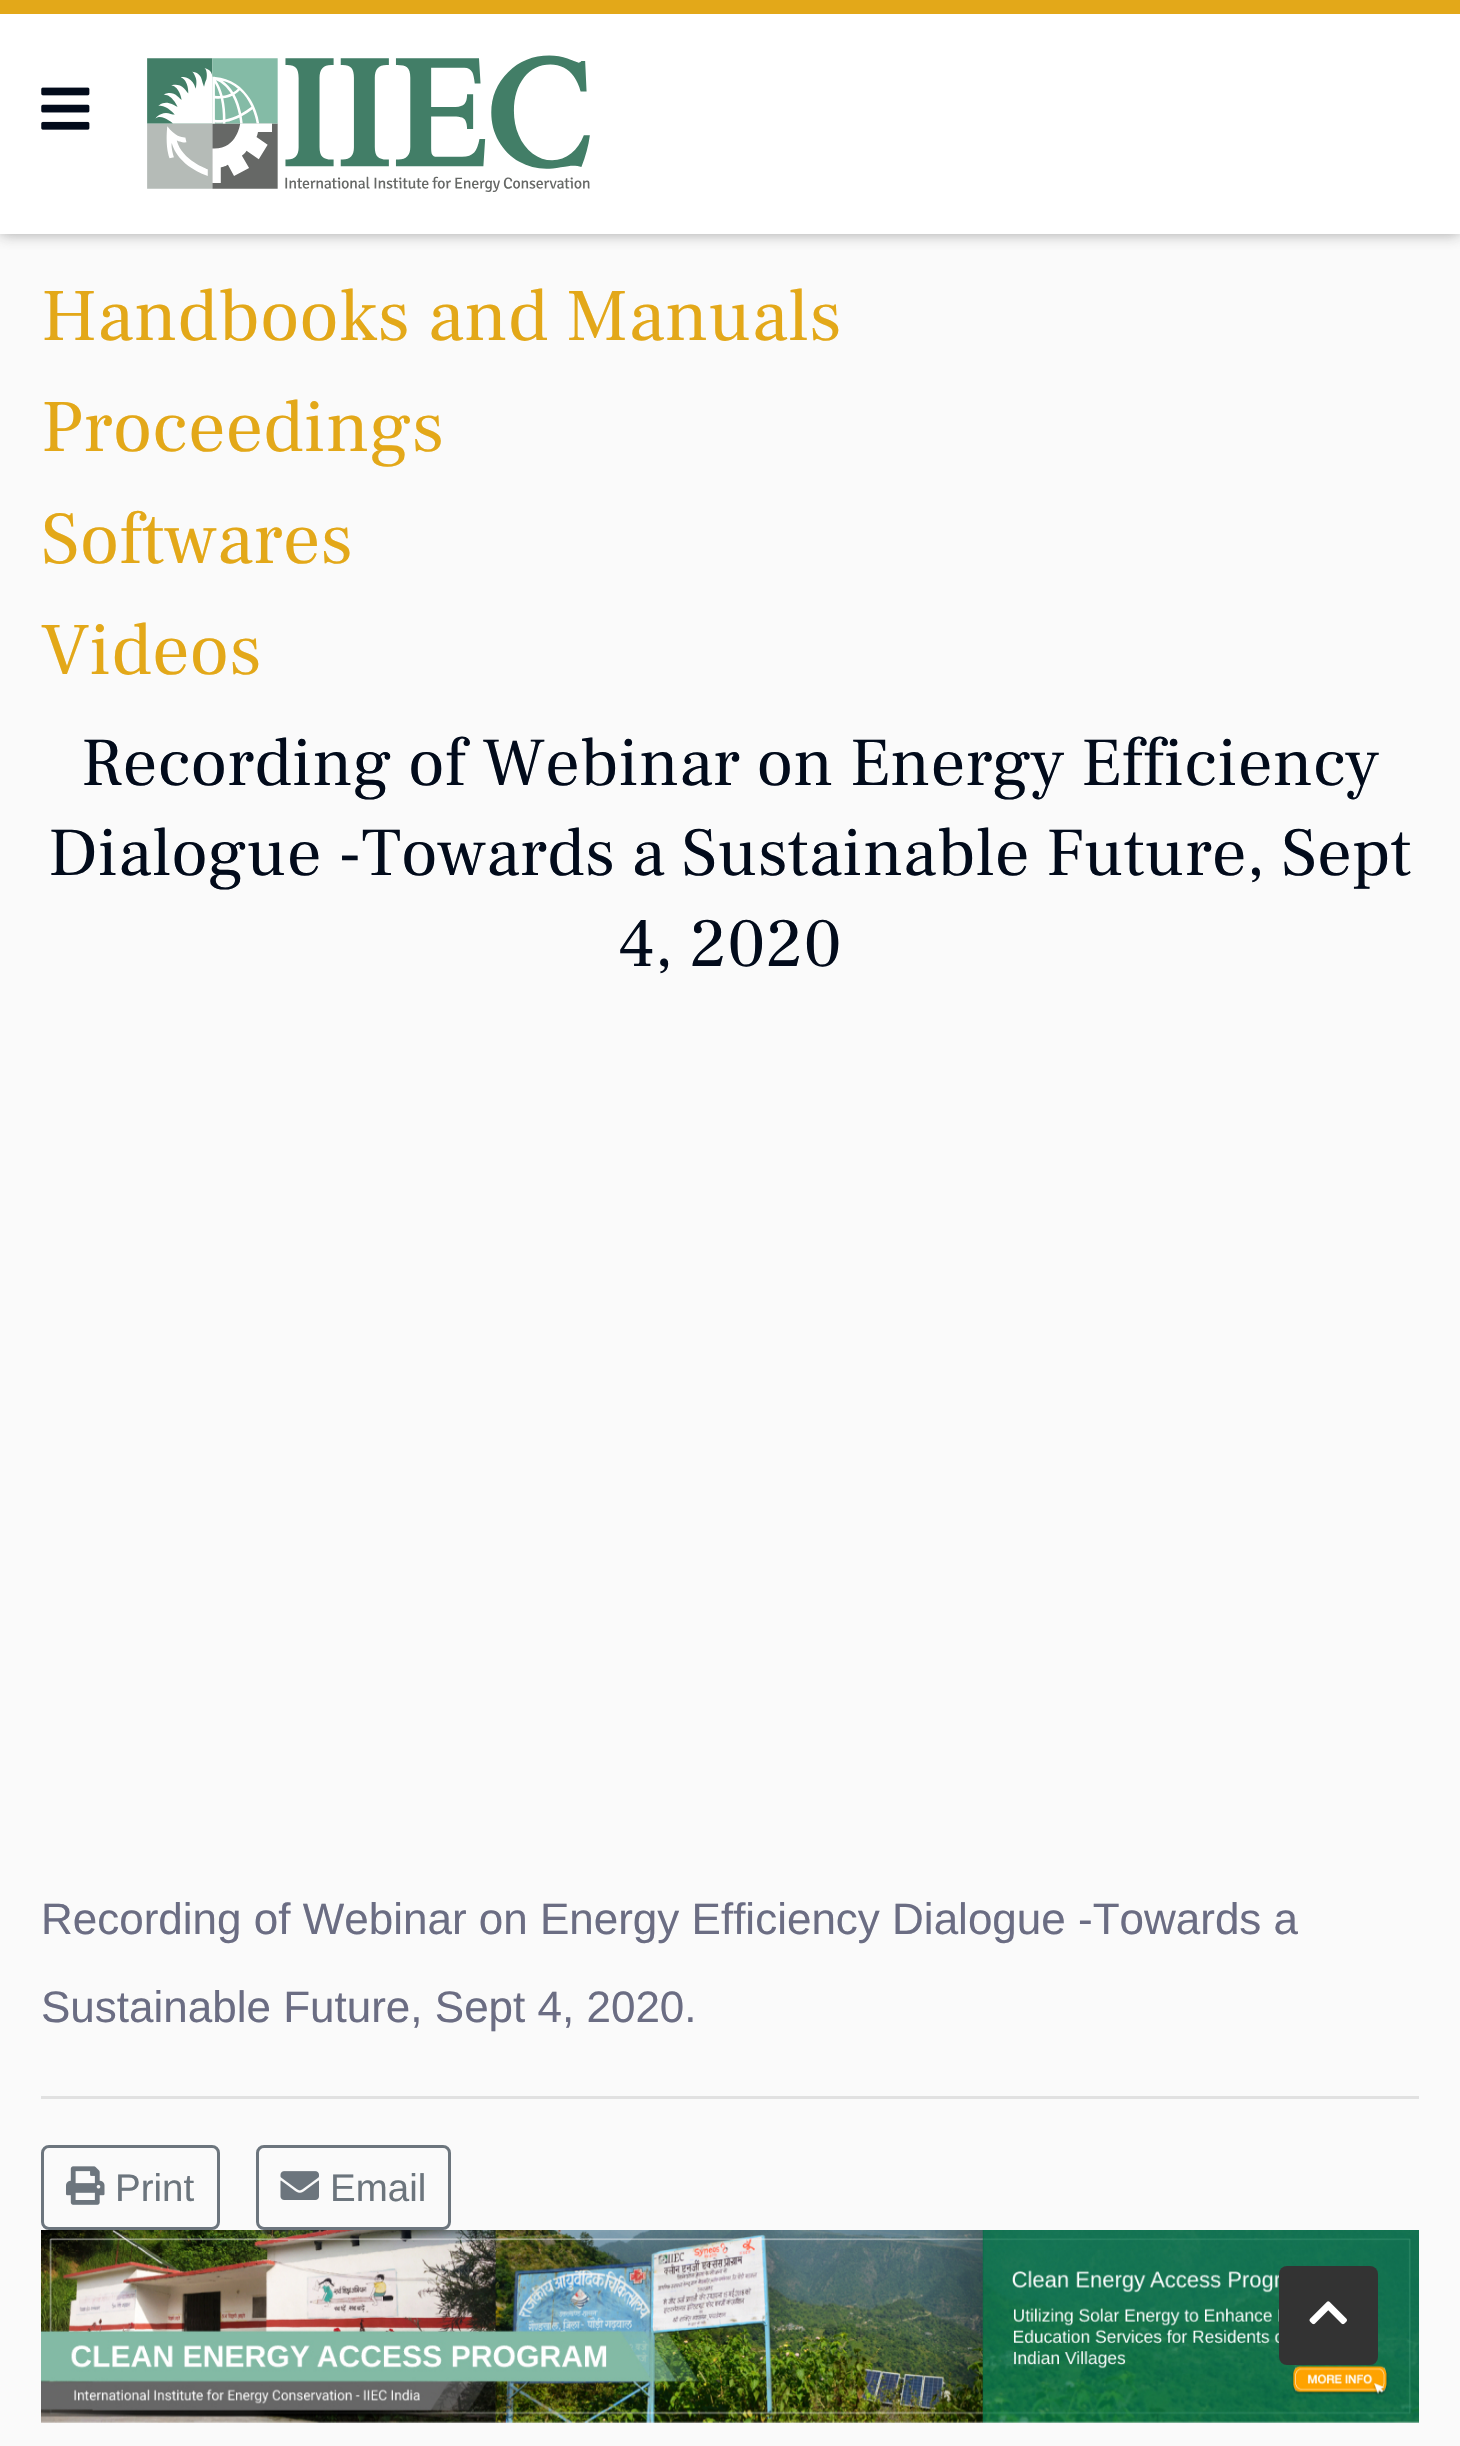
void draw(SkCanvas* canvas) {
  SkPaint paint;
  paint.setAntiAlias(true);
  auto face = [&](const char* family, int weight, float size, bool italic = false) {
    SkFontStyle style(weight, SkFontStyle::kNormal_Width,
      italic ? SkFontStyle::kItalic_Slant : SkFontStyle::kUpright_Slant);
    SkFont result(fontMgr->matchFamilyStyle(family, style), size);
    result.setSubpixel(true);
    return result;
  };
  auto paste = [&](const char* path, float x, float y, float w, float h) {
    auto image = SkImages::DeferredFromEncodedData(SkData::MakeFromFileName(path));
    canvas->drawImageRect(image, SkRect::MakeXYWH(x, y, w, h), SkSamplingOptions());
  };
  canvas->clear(0xfffafafa);
  paint.setColor(0xe0979797);
  paint.setMaskFilter(SkMaskFilter::MakeBlur(kNormal_SkBlurStyle, 7));
  canvas->drawRect(SkRect::MakeXYWH(0, 0, 1460, 234), paint);
  paint.setMaskFilter(nullptr);
  paint.setColor(0xffffffff);
  canvas->drawRect(SkRect::MakeXYWH(0, 14, 1460, 220), paint);
  paint.setColor(0xffe3a819);
  canvas->drawRect(SkRect::MakeXYWH(0, 0, 1460, 14), paint);
  paste("img/1.png", 41, 87, 49, 43);
  paste("img/2.png", 147, 55, 443, 137);
  paint.setColor(0xffe1e1e1);
  canvas->drawRect(SkRect::MakeXYWH(41, 2096, 1378, 3), paint);
  paint.setStroke(true);
  paint.setStrokeWidth(3);
  paint.setColor(0xff6c757d);
  canvas->drawRoundRect(SkRect::MakeXYWH(42.5f, 2146.5f, 176, 82), 6.5f, 6.5f, paint);
  paste("img/3.png", 66, 2166, 39, 39);
  canvas->drawRoundRect(SkRect::MakeXYWH(257.5f, 2146.5f, 192, 82), 6.5f, 6.5f, paint);
  paste("img/4.png", 280, 2171, 39, 29);
  paste("img/5.png", 41, 2230, 1378, 193);
  paint.setStroke(false);
  paint.setColor(0xff333333);
  canvas->drawRoundRect(SkRect::MakeXYWH(1279, 2266, 99, 99), 8, 8, paint);
  paste("img/6.png", 1309, 2301, 38, 24);
  auto f0 = face("Frank Ruhl Libre", 400, 74.25f);
  paint.setColor(0xffe3a819);
  {
    const struct { const char* s; float x, y; } items[] = {
      {"Handbooks and Manuals", 41, 340},
      {"Proceedings", 41, 451},
      {"Softwares", 41, 563},
      {"Videos", 41, 674},
    };
    for (auto [s, x, y] : items) {
      canvas->drawString(s, x, y, f0, paint);
    }
  }
  auto f1 = face("Frank Ruhl Libre", 400, 68.75f);
  paint.setColor(0xff020b1b);
  {
    const struct { const char* s; float x, y; } items[] = {
      {"Recording of Webinar on Energy Efficiency", 81, 785},
      {"Dialogue -Towards a Sustainable Future, Sept", 48, 875},
      {"4, 2020", 618, 966},
    };
    for (auto [s, x, y] : items) {
      canvas->drawString(s, x, y, f1, paint);
    }
  }
  auto f2 = face("Arimo", 400, 44);
  paint.setColor(0xff6b6d83);
  canvas->drawString("Recording of Webinar on Energy Efficiency Dialogue -Towards a", 41, 1934, f2, paint);
  canvas->drawString("Sustainable Future, Sept 4, 2020.", 41, 2022, f2, paint);
  auto f3 = face("Arimo", 400, 38.5f);
  paint.setColor(0xff6c757d);
  canvas->drawString("Print", 115, 2201, f3, paint);
  canvas->drawString("Email", 330, 2201, f3, paint);
}
